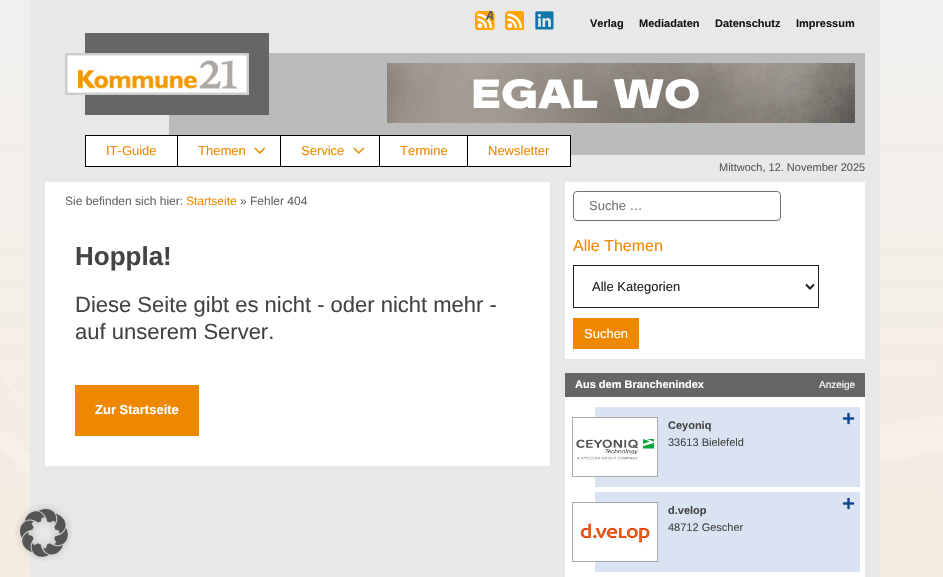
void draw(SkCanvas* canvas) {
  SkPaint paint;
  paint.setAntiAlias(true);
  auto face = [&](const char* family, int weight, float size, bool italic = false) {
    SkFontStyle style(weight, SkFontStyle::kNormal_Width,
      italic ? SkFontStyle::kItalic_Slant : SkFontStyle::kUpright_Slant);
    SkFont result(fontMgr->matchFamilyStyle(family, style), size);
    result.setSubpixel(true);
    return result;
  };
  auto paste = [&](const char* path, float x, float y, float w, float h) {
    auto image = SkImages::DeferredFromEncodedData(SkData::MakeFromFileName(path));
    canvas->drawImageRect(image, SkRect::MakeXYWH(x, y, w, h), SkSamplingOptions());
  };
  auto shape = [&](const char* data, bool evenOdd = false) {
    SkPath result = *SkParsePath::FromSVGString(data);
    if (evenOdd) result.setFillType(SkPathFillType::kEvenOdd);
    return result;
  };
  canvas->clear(0xffffffff);
  paste("img/1.png", 0, 0, 943, 577);
  paint.setColor(0xffe9e8e8);
  canvas->drawRect(SkRect::MakeXYWH(30, 0, 850, 577), paint);
  paste("img/2.png", 475, 11, 20, 19);
  paste("img/3.png", 505, 11, 19, 19);
  paste("img/4.png", 535, 11, 19, 19);
  paint.setColor(0xffbbbbbb);
  canvas->drawRect(SkRect::MakeXYWH(169, 53, 696, 102), paint);
  paint.setColor(0xff666666);
  canvas->drawRect(SkRect::MakeXYWH(85, 33, 184, 82), paint);
  paste("img/5.png", 65, 53, 184, 42);
  paste("img/6.png", 387, 63, 468, 60);
  {
    const struct { float x, y, w, h; SkColor color; } items[] = {
      {85, 135, 486, 1, 0xff000000},
      {85, 166, 486, 1, 0xff000000},
      {85, 135, 1, 32, 0xff000000},
      {86, 136, 91, 30, 0xffffffff},
      {177, 136, 1, 30, 0xff000000},
      {178, 136, 102, 30, 0xffffffff},
      {280, 136, 1, 30, 0xff000000},
    };
    for (auto [x, y, w, h, color] : items) {
      paint.setColor(color);
      canvas->drawRect(SkRect::MakeXYWH(x, y, w, h), paint);
    }
  }
  paste("img/7.png", 254, 147, 12, 7);
  paint.setColor(0xffffffff);
  canvas->drawRect(SkRect::MakeXYWH(281, 136, 98, 30), paint);
  paint.setColor(0xff000000);
  canvas->drawRect(SkRect::MakeXYWH(379, 136, 1, 30), paint);
  paste("img/7.png", 353, 147, 12, 7);
  {
    const struct { float x, y, w, h; SkColor color; } items[] = {
      {380, 136, 87, 30, 0xffffffff},
      {467, 136, 1, 30, 0xff000000},
      {468, 136, 102, 30, 0xffffffff},
      {570, 136, 1, 30, 0xff000000},
    };
    for (auto [x, y, w, h, color] : items) {
      paint.setColor(color);
      canvas->drawRect(SkRect::MakeXYWH(x, y, w, h), paint);
    }
  }
  paste("img/8.png", 15, 504, 57, 57);
  {
    const struct { float x, y, w, h; SkColor color; } items[] = {
      {45, 182, 505, 284, 0xffffffff},
      {75, 385, 124, 51, 0xffee8800},
      {565, 182, 300, 177, 0xffffffff},
    };
    for (auto [x, y, w, h, color] : items) {
      paint.setColor(color);
      canvas->drawRect(SkRect::MakeXYWH(x, y, w, h), paint);
    }
  }
  paint.setStroke(true);
  paint.setStrokeWidth(1);
  paint.setColor(0xff757171);
  canvas->drawRoundRect(SkRect::MakeXYWH(573.5f, 191.5f, 207, 29), 3.5f, 3.5f, paint);
  paint.setColor(0xff222222);
  canvas->drawRect(SkRect::MakeXYWH(573.5f, 265.5f, 245, 42), paint);
  paint.setStrokeWidth(2);
  canvas->drawPath(shape("M806 284.5L810 288.5L814 284.5"), paint);
  paint.setStroke(false);
  {
    const struct { float x, y, w, h; SkColor color; } items[] = {
      {573, 318, 66, 31, 0xffee8800},
      {565, 397, 300, 180, 0xffffffff},
      {565, 373, 300, 24, 0xff666666},
      {595, 407, 265, 80, 0xffdae3f1},
    };
    for (auto [x, y, w, h, color] : items) {
      paint.setColor(color);
      canvas->drawRect(SkRect::MakeXYWH(x, y, w, h), paint);
    }
  }
  paint.setStroke(true);
  paint.setStrokeWidth(1);
  paint.setColor(0xffaaaaaa);
  canvas->drawRect(SkRect::MakeXYWH(572.5f, 417.5f, 85, 59), paint);
  paste("img/9.png", 576, 418, 81, 58);
  paste("img/10.png", 842, 412, 13, 13);
  paint.setStroke(false);
  paint.setColor(0xffdae3f1);
  canvas->drawRect(SkRect::MakeXYWH(595, 492, 265, 80), paint);
  paint.setStroke(true);
  paint.setColor(0xffaaaaaa);
  canvas->drawRect(SkRect::MakeXYWH(572.5f, 502.5f, 85, 59), paint);
  paste("img/11.png", 578, 503, 79, 58);
  paste("img/10.png", 842, 497, 13, 13);
  auto f0 = face("Liberation Sans", 700, 11);
  paint.setStroke(false);
  paint.setColor(0xff141414);
  {
    const struct { const char* s; float x, y; } items[] = {
      {"Verlag", 590, 27},
      {"Mediadaten", 639, 27},
      {"Datenschutz", 715, 27},
      {"Impressum", 796, 27},
    };
    for (auto [s, x, y] : items) {
      canvas->drawString(s, x, y, f0, paint);
    }
  }
  auto f1 = face("Liberation Sans", 400, 13);
  paint.setColor(0xffee8800);
  {
    const struct { const char* s; float x, y; } items[] = {
      {"IT-Guide", 106, 155},
      {"Themen", 198, 155},
      {"Service", 301, 155},
      {"Termine", 400, 155},
      {"Newsletter", 488, 155},
    };
    for (auto [s, x, y] : items) {
      canvas->drawString(s, x, y, f1, paint);
    }
  }
  auto f2 = face("Liberation Sans", 400, 11);
  paint.setColor(0xff575760);
  canvas->drawString("Mittwoch, 12. November 2025", 719, 171, f2, paint);
  auto f3 = face("Liberation Sans", 400, 12);
  paint.setColor(0xff666666);
  canvas->drawString("Sie befinden sich hier:", 65, 205, f3, paint);
  paint.setColor(0xffee8800);
  canvas->drawString("Startseite", 186, 205, f3, paint);
  paint.setColor(0xff666666);
  canvas->drawString("» Fehler 404", 240, 205, f3, paint);
  auto f4 = face("Liberation Sans", 700, 26);
  paint.setColor(0xff444444);
  canvas->drawString("Hoppla!", 75, 265, f4, paint);
  auto f5 = face("Liberation Sans", 400, 22);
  canvas->drawString("Diese Seite gibt es nicht - oder nicht mehr -", 75, 312, f5, paint);
  canvas->drawString("auf unserem Server.", 75, 339, f5, paint);
  auto f6 = face("Liberation Sans", 700, 13);
  paint.setColor(0xffffffff);
  canvas->drawString("Zur Startseite", 95, 414, f6, paint);
  paint.setColor(0xff757575);
  canvas->drawString("Suche …", 589, 210, f1, paint);
  auto f7 = face("Liberation Sans", 400, 16);
  paint.setColor(0xffee8800);
  canvas->drawString("Alle Themen", 573, 251, f7, paint);
  paint.setColor(0xff222222);
  canvas->drawString("Alle Kategorien", 592, 291, f1, paint);
  paint.setColor(0xffffffff);
  canvas->drawString("Suchen", 584, 338, f1, paint);
  canvas->drawString("Aus dem Branchenindex", 575, 388, f0, paint);
  auto f8 = face("Liberation Sans", 400, 10);
  canvas->drawString("Anzeige", 819, 388, f8, paint);
  paint.setColor(0xff444444);
  canvas->drawString("Ceyoniq", 668, 429, f0, paint);
  canvas->drawString("33613 Bielefeld", 668, 446, f2, paint);
  canvas->drawString("d.velop", 668, 514, f0, paint);
  canvas->drawString("48712 Gescher", 668, 531, f2, paint);
}
